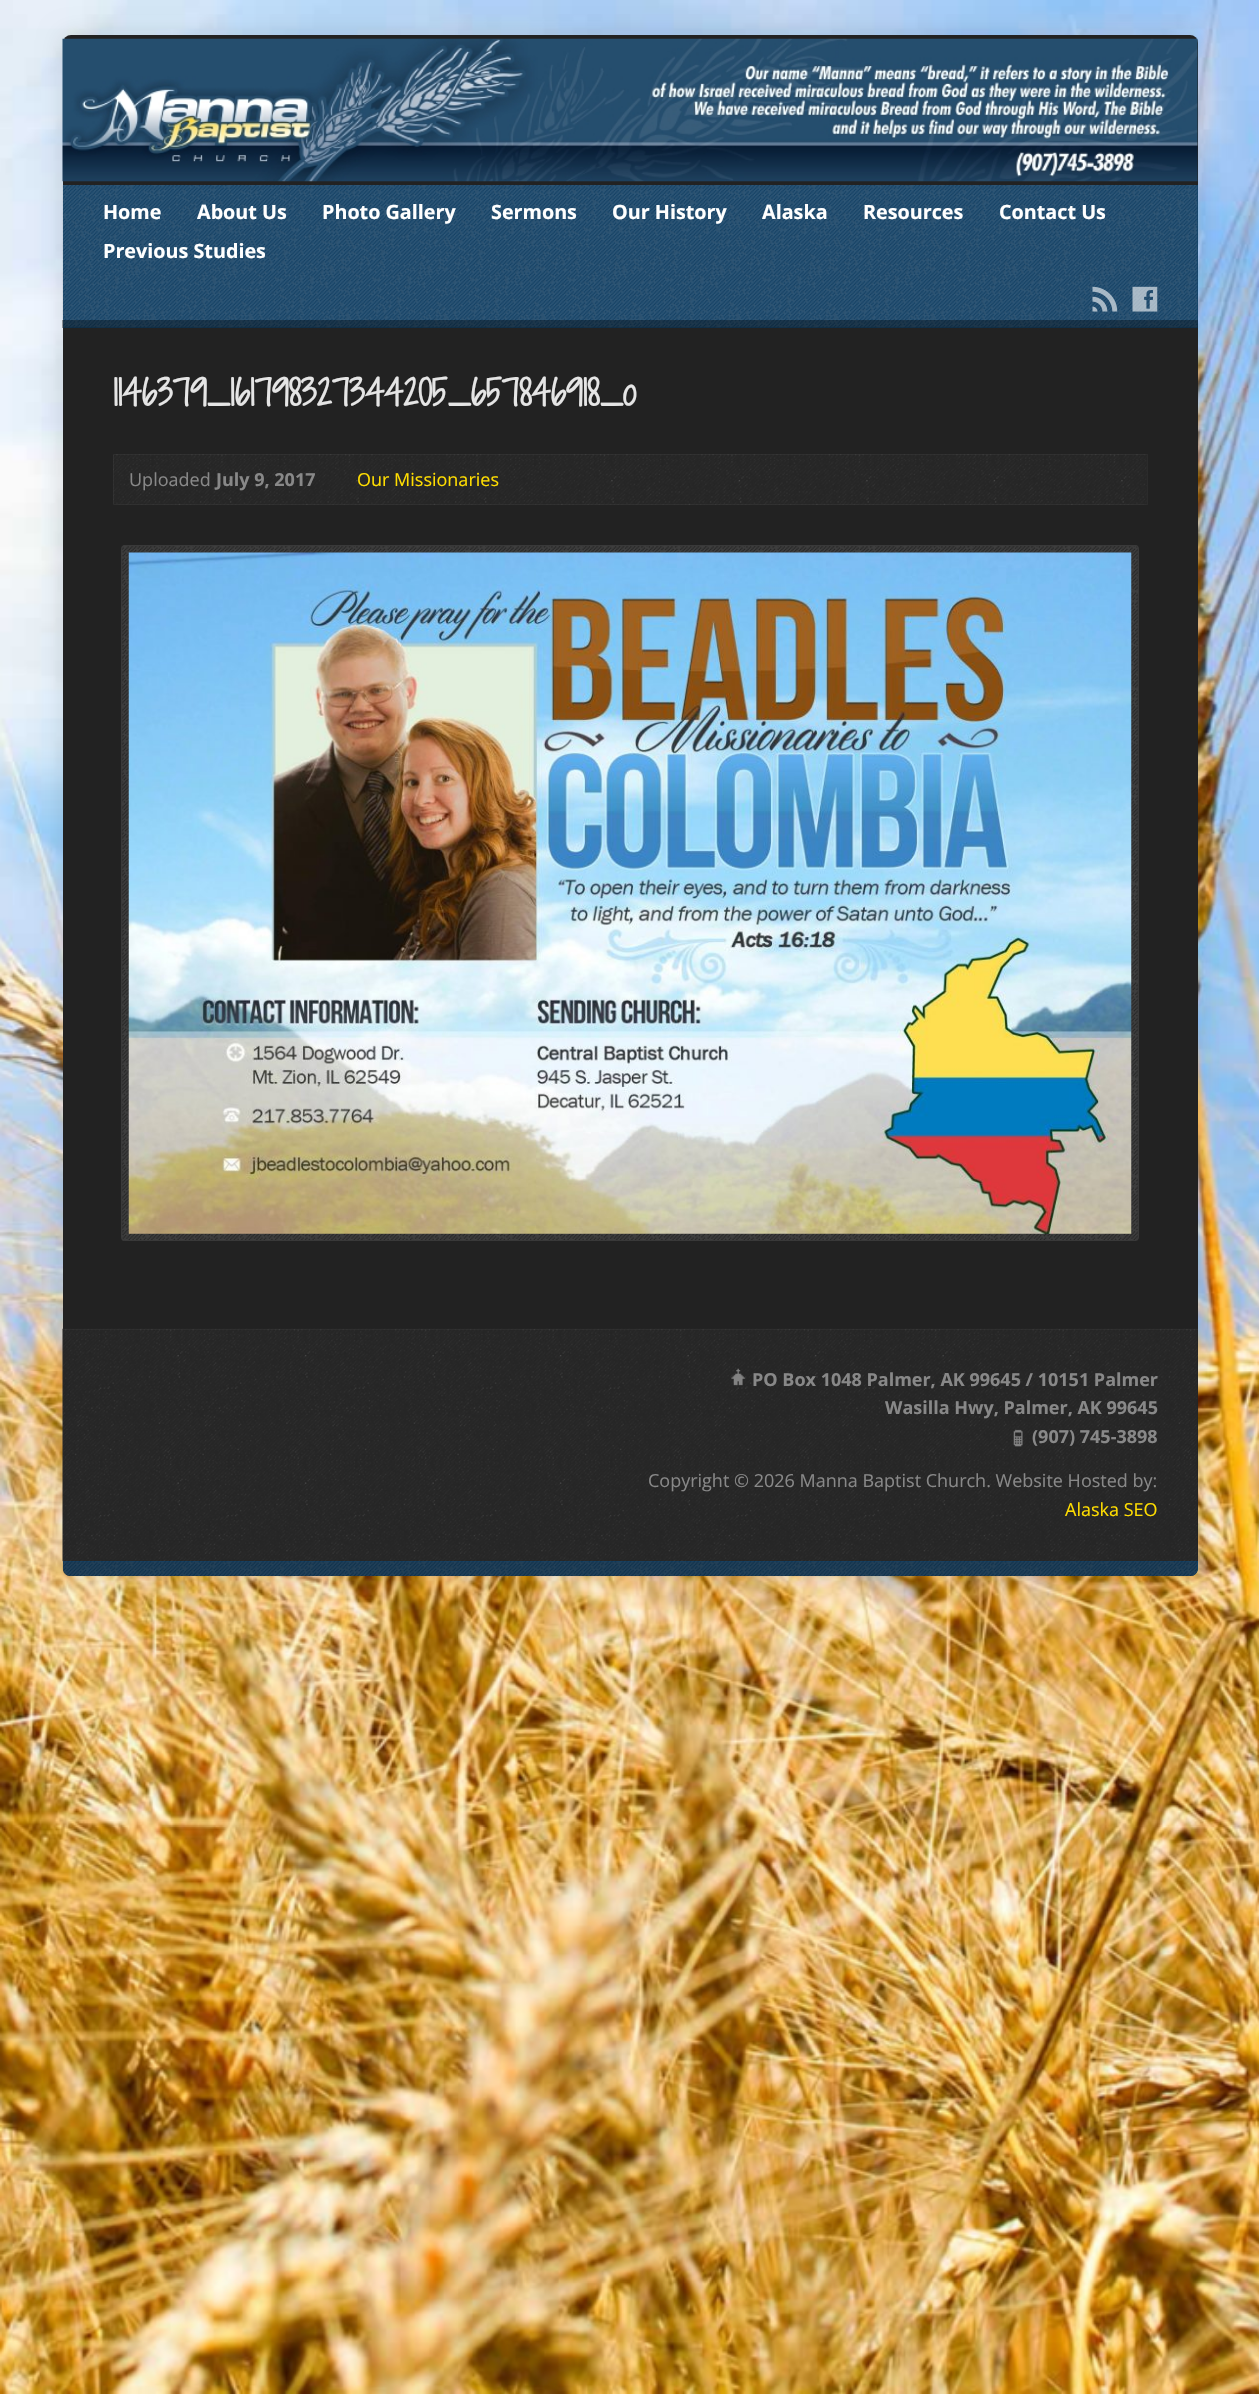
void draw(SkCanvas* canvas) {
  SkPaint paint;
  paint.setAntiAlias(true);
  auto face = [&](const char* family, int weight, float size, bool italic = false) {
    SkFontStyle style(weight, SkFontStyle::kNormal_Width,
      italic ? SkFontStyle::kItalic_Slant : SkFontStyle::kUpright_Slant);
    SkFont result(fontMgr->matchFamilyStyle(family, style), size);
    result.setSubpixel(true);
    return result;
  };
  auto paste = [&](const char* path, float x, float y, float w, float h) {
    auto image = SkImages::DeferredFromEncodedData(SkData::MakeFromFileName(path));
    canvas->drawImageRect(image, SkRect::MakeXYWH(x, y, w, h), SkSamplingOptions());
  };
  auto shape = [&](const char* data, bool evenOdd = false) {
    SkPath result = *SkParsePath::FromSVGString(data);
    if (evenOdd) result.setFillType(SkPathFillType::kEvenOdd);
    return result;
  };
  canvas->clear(0xffffffff);
  paste("img/1.png", 0, 0, 1259, 2394);
  paint.setColor(0x1f000000);
  paint.setMaskFilter(SkMaskFilter::MakeBlur(kNormal_SkBlurStyle, 12.5f));
  canvas->drawRoundRect(SkRect::MakeXYWH(63, 35, 1135, 1541), 8, 8, paint);
  paint.setMaskFilter(nullptr);
  paint.setColor(0xff222222);
  canvas->drawRoundRect(SkRect::MakeXYWH(63, 35, 1135, 1541), 8, 8, paint);
  paste("img/2.png", 62, 38, 1136, 144);
  paint.setColor(0xff0c4069);
  canvas->drawRect(SkRect::MakeXYWH(63, 185, 1135, 143), paint);
  paste("img/3.png", 62, 185, 1136, 143);
  paste("img/4.png", 1092, 286, 26, 26);
  paste("img/5.png", 1132, 286, 26, 26);
  paint.setColor(0x59000000);
  canvas->drawRect(SkRect::MakeXYWH(62, 320, 1136, 8), paint);
  paste("img/6.png", 113, 454, 1034, 51);
  paint.setStroke(true);
  paint.setStrokeWidth(1);
  paint.setColor(0x0affffff);
  canvas->drawRect(SkRect::MakeXYWH(113.5f, 454.5f, 1034, 50), paint);
  paste("img/7.png", 121, 545, 1018, 696);
  paint.setColor(0xff393939);
  canvas->drawRoundRect(SkRect::MakeXYWH(121.5f, 545.5f, 1017, 695), 3.5f, 3.5f, paint);
  paste("img/8.png", 128, 552, 1004, 682);
  paste("img/9.png", 62, 1328, 1136, 234);
  paint.setStroke(false);
  paint.setColor(0x08ffffff);
  canvas->drawRect(SkRect::MakeXYWH(63, 1329, 1135, 1), paint);
  paste("img/10.png", 731, 1368, 15, 18);
  paste("img/11.png", 1013, 1429, 10, 18);
  paint.setColor(0xff0c4069);
  canvas->drawPath(shape("M63 1561H1198V1568.5C1198 1572.5 1194.5 1576 1190.5 1576H70.5C66.5 1576 63 1572.5 63 1568.5Z"), paint);
  paste("img/12.png", 62, 1561, 1136, 16);
  auto f0 = face("Open Sans", 700, 19.75f);
  paint.setColor(0xffffffff);
  {
    const struct { const char* s; float x, y; } items[] = {
      {"Home", 103, 219},
      {"About Us", 197, 219},
      {"Photo Gallery", 322, 219},
      {"Sermons", 491, 219},
      {"Our History", 612, 219},
      {"Alaska", 762, 219},
      {"Resources", 863, 219},
      {"Contact Us", 999, 219},
      {"Previous Studies", 103, 258},
    };
    for (auto [s, x, y] : items) {
      canvas->drawString(s, x, y, f0, paint);
    }
  }
  auto f1 = face("Shadows Into Light Two", 700, 34.25f);
  paint.setColor(0xffe5e5e5);
  canvas->drawString("1146379_161798327344205_657846918_o", 113, 406, f1, paint);
  auto f2 = face("Open Sans", 400, 18);
  paint.setColor(0xff888888);
  canvas->drawString("Uploaded", 129, 486, f2, paint);
  auto f3 = face("Open Sans", 700, 18);
  canvas->drawString("July 9, 2017", 216, 486, f3, paint);
  paint.setColor(0xffffdd00);
  canvas->drawString("Our Missionaries", 357, 486, f2, paint);
  paint.setColor(0xff888888);
  {
    const struct { const char* s; float x, y; } items[] = {
      {"PO Box 1048 Palmer, AK 99645 / 10151 Palmer", 752, 1386},
      {"Wasilla Hwy, Palmer, AK 99645", 885, 1414},
      {"(907) 745-3898", 1032, 1443},
    };
    for (auto [s, x, y] : items) {
      canvas->drawString(s, x, y, f3, paint);
    }
  }
  canvas->drawString("Copyright © 2026 Manna Baptist Church. Website Hosted by:", 648, 1487, f2, paint);
  paint.setColor(0xffffdd00);
  canvas->drawString("Alaska SEO", 1065, 1516, f2, paint);
}
